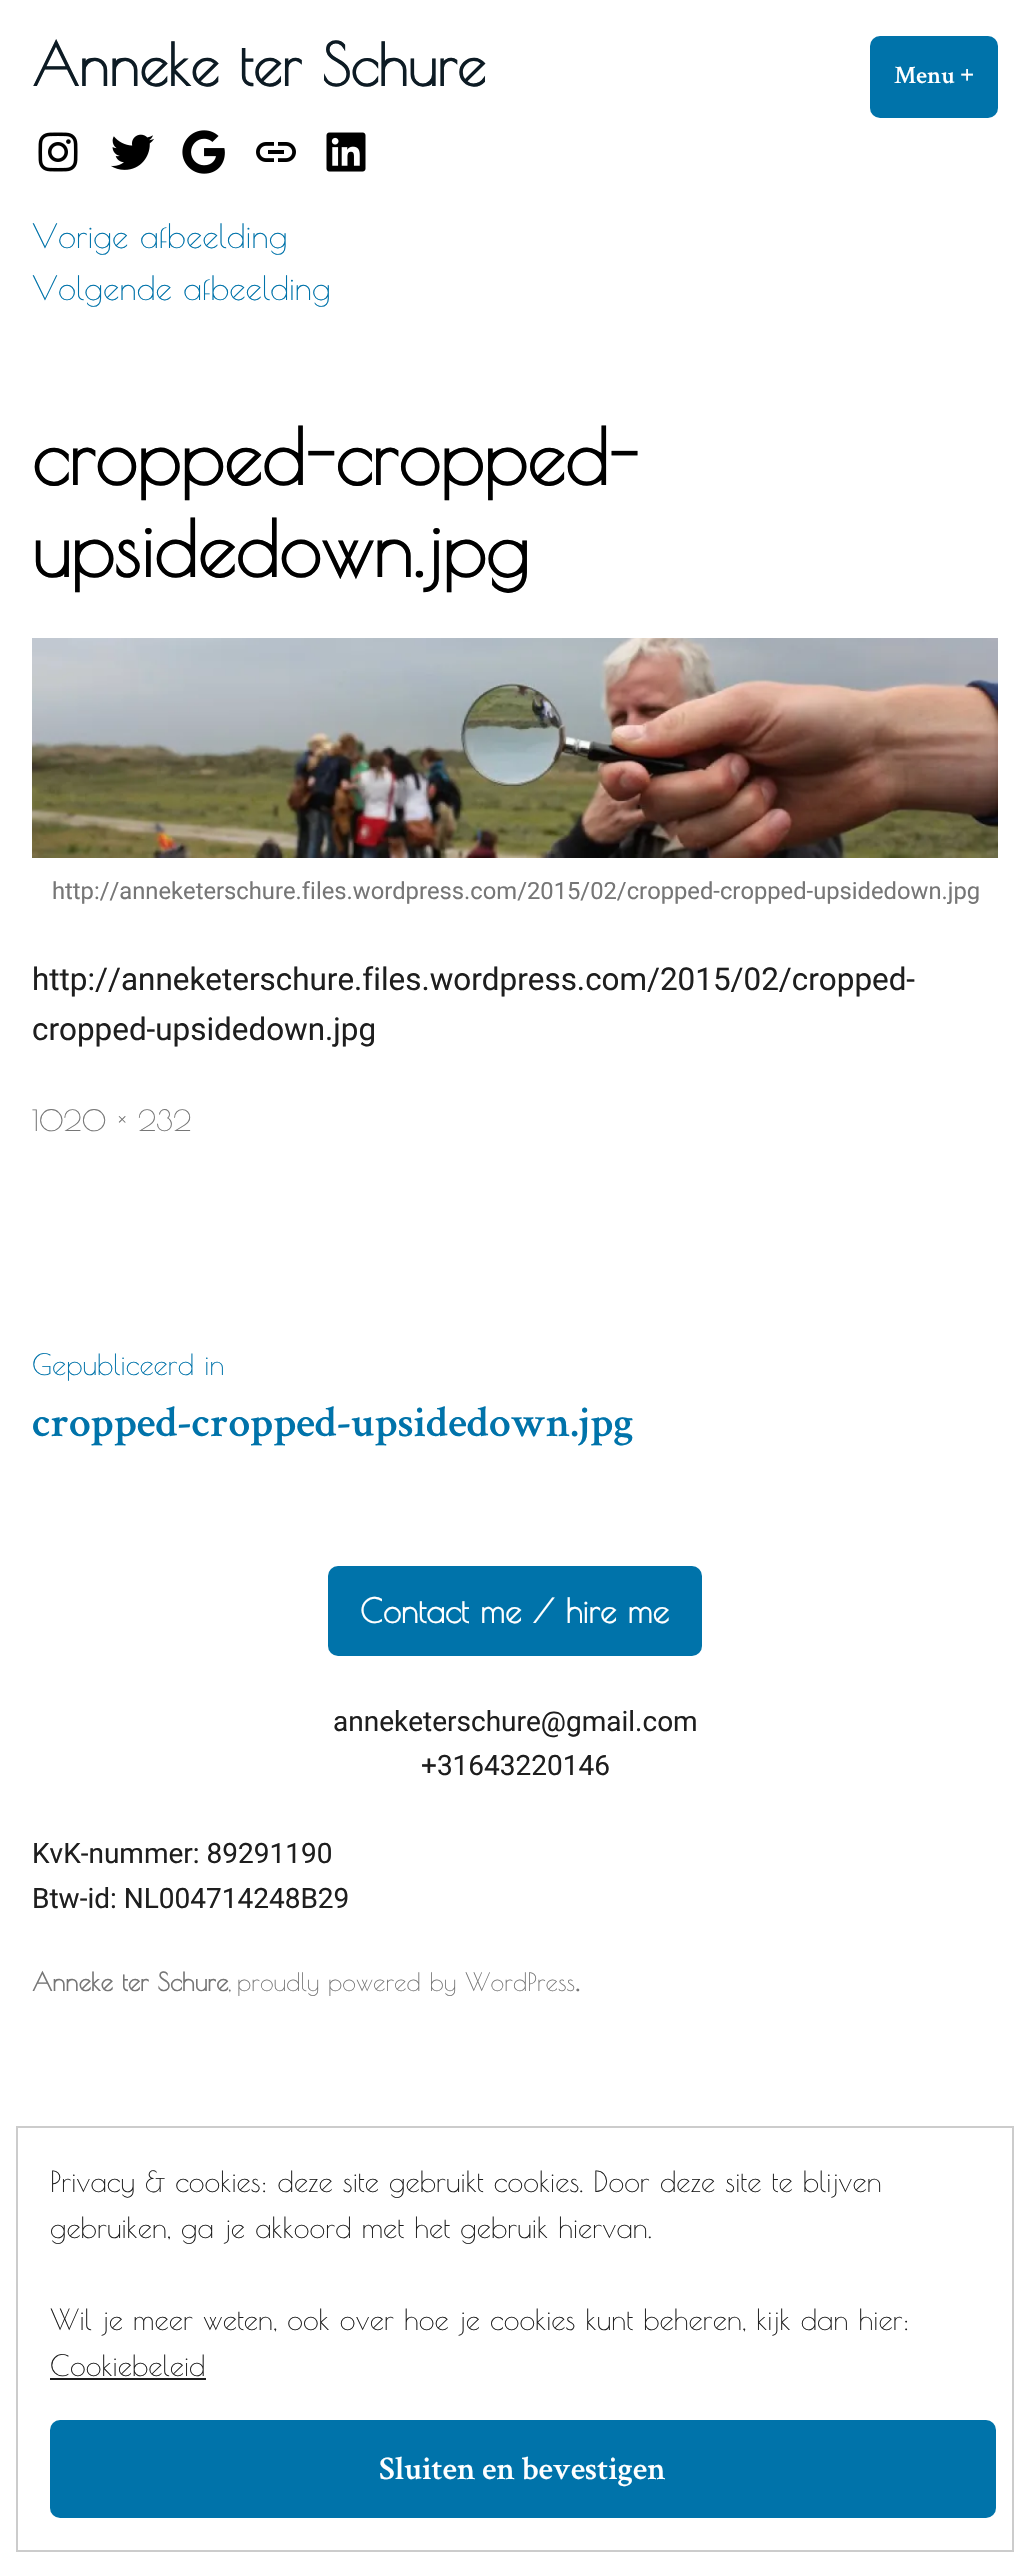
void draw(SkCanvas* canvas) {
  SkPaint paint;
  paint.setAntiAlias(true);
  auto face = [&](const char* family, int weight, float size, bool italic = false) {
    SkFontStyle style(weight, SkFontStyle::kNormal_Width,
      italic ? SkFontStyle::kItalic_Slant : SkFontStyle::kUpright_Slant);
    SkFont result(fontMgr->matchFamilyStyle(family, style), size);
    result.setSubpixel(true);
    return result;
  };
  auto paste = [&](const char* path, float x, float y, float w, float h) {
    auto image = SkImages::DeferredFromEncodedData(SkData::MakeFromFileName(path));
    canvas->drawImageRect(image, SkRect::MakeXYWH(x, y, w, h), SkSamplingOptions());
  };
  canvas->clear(0xffffffff);
  paint.setColor(0xff0073aa);
  canvas->drawRoundRect(SkRect::MakeXYWH(870, 36, 128, 82), 10, 10, paint);
  paste("img/1.png", 38, 132, 40, 40);
  paste("img/2.png", 111, 134, 43, 36);
  paste("img/3.png", 182, 130, 43, 44);
  paste("img/4.png", 256, 142, 40, 20);
  paste("img/5.png", 326, 132, 40, 40);
  paste("img/6.png", 32, 638, 966, 220);
  canvas->drawRoundRect(SkRect::MakeXYWH(328, 1566, 374, 90), 10, 10, paint);
  paint.setStroke(true);
  paint.setStrokeWidth(2);
  paint.setColor(0xffcccccc);
  canvas->drawRect(SkRect::MakeXYWH(17, 2127, 996, 424), paint);
  paint.setStroke(false);
  paint.setColor(0xff1e1e1e);
  canvas->drawRect(SkRect::MakeXYWH(50, 2378, 156, 2), paint);
  paint.setColor(0xff0073aa);
  canvas->drawRoundRect(SkRect::MakeXYWH(50, 2420, 946, 98), 10, 10, paint);
  auto f0 = face("Poiret One", 700, 57.75f);
  paint.setColor(0xff0d1b24);
  canvas->drawString("Anneke ter Schure", 32, 86, f0, paint);
  auto f1 = face("Crimson Text", 600, 25);
  paint.setColor(0xffffffff);
  canvas->drawString("Menu", 894, 83, f1, paint);
  auto f2 = face("Liberation Serif", 700, 25);
  canvas->drawString("+", 960, 83, f2, paint);
  auto f3 = face("Poiret One", 400, 33);
  paint.setColor(0xff0073aa);
  canvas->drawString("Vorige afbeelding", 32, 248, f3, paint);
  canvas->drawString("Volgende afbeelding", 32, 300, f3, paint);
  auto f4 = face("Poiret One", 700, 76.5f);
  paint.setColor(0xff000000);
  canvas->drawString("cropped-cropped-", 32, 485, f4, paint);
  canvas->drawString("upsidedown.jpg", 32, 577, f4, paint);
  auto f5 = face("Roboto", 400, 23.75f);
  paint.setColor(0xff767676);
  canvas->drawString("http://anneketerschure.files.wordpress.com/2015/02/cropped-cropped-upsidedown.jpg", 52, 899, f5, paint);
  auto f6 = face("Roboto", 400, 31.4f);
  paint.setColor(0xff1e1e1e);
  canvas->drawString("http://anneketerschure.files.wordpress.com/2015/02/cropped-", 32, 990, f6, paint);
  canvas->drawString("cropped-upsidedown.jpg", 32, 1040, f6, paint);
  auto f7 = face("Poiret One", 400, 28.75f);
  paint.setColor(0xff767676);
  canvas->drawString("1020 × 232", 32, 1131, f7, paint);
  paint.setColor(0xff0073aa);
  canvas->drawString("Gepubliceerd in", 32, 1375, f7, paint);
  auto f8 = face("Crimson Text", 600, 43.75f);
  canvas->drawString("cropped-cropped-upsidedown.jpg", 32, 1436, f8, paint);
  auto f9 = face("Poiret One", 700, 33);
  paint.setColor(0xffffffff);
  canvas->drawString("Contact me / hire me", 360, 1623, f9, paint);
  auto f10 = face("Roboto", 400, 28);
  paint.setColor(0xff1e1e1e);
  {
    const struct { const char* s; float x, y; } items[] = {
      {"anneketerschure@gmail.com", 333, 1731},
      {"+31643220146", 421, 1775},
      {"KvK-nummer: 89291190", 32, 1863},
      {"Btw-id: NL004714248B29", 32, 1908},
    };
    for (auto [s, x, y] : items) {
      canvas->drawString(s, x, y, f10, paint);
    }
  }
  {
    const struct { const char* s; float x, y; } items[] = {
      {"Privacy & cookies: deze site gebruikt cookies. Door deze site te blijven", 50, 2192},
      {"gebruiken, ga je akkoord met het gebruik hiervan.", 50, 2238},
      {"Wil je meer weten, ook over hoe je cookies kunt beheren, kijk dan hier:", 50, 2330},
      {"Cookiebeleid", 50, 2376},
    };
    for (auto [s, x, y] : items) {
      canvas->drawString(s, x, y, f7, paint);
    }
  }
  auto f11 = face("Crimson Text", 600, 33);
  paint.setColor(0xffffffff);
  canvas->drawString("Sluiten en bevestigen", 379, 2479, f11, paint);
  auto f12 = face("Poiret One", 700, 25);
  paint.setColor(0xff767676);
  canvas->drawString("Anneke ter Schure", 32, 1991, f12, paint);
  auto f13 = face("Poiret One", 400, 25);
  canvas->drawString(",", 228, 1991, f13, paint);
  canvas->drawString("proudly powered by WordPress", 237, 1991, f13, paint);
  auto f14 = face("Crimson Text", 400, 25);
  canvas->drawString(".", 575, 1991, f14, paint);
}
